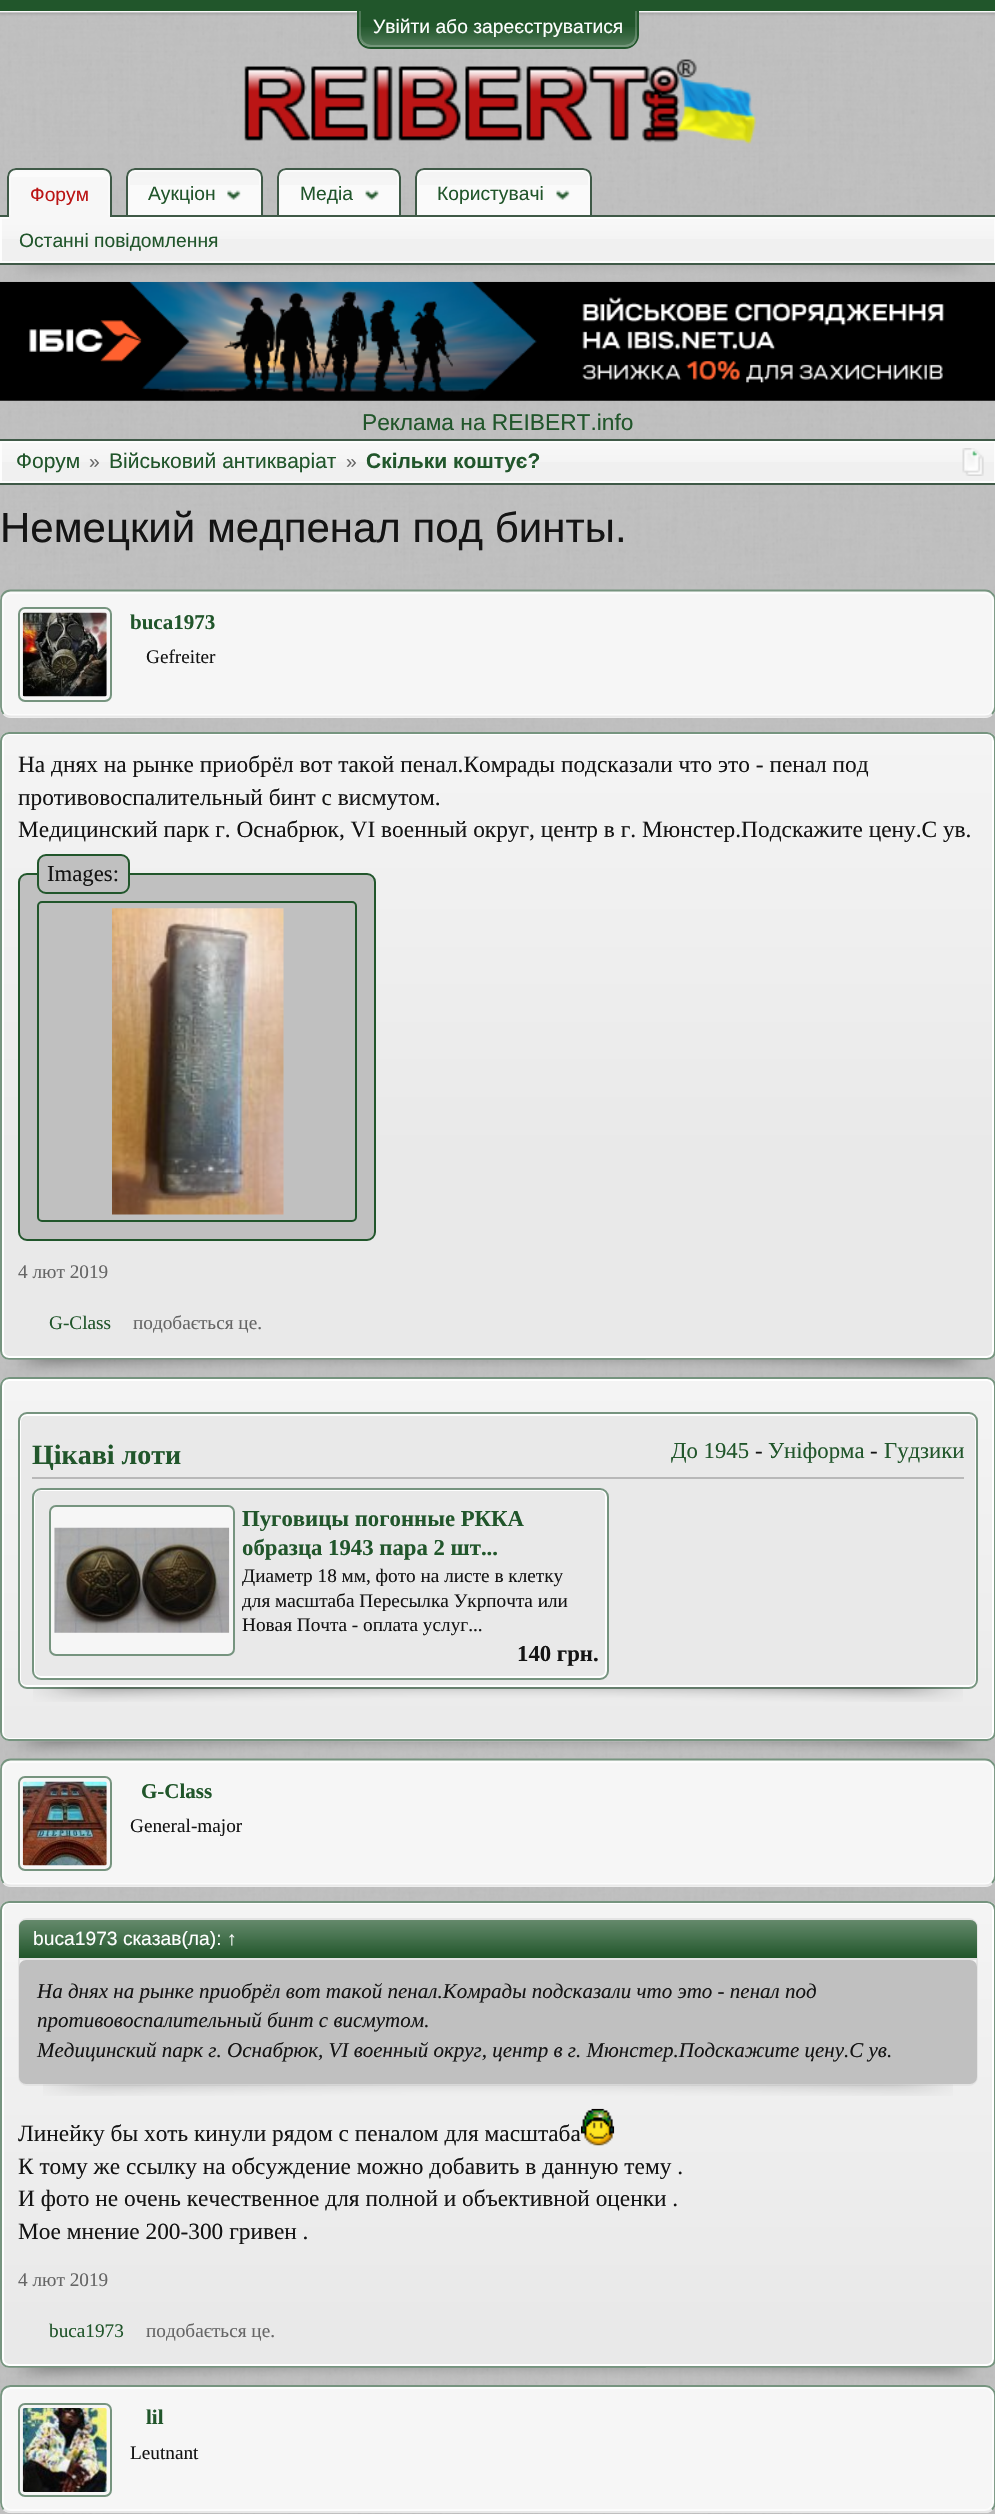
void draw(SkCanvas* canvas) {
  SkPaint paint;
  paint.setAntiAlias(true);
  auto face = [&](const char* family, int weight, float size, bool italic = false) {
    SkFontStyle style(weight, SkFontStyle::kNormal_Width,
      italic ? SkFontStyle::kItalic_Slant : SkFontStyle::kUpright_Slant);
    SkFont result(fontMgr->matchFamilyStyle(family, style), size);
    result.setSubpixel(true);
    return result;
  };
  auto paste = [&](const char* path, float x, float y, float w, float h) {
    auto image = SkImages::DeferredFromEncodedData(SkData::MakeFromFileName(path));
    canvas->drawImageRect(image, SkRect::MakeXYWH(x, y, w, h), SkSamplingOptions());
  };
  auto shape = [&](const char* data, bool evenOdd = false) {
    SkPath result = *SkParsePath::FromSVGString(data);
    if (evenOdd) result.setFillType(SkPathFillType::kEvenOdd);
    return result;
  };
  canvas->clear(0xffc0c0c0);
  paint.setColor(0xff21562b);
  canvas->drawRect(SkRect::MakeXYWH(0, 0, 995, 11), paint);
  paste("img/2.png", 0, 11, 995, 2503);
  paste("img/3.png", 0, 11, 995, 5);
  canvas->drawPath(shape("M359 11H637V35C637 41.5 631.5 47 625 47H371C364.5 47 359 41.5 359 35Z"), paint);
  paste("img/1.png", 357, 27, 281, 22);
  canvas->save();
  canvas->clipRect(SkRect::MakeXYWH(357, 11, 282, 42));
  paint.setStroke(true);
  paint.setStrokeWidth(2);
  paint.setColor(0x33ffffff);
  canvas->drawPath(shape("M360 5H636V35C636 41 631 46 625 46H371C365 46 360 41 360 35Z"), paint);
  paint.setStroke(false);
  paint.setColor(0xff21562b);
  canvas->drawPath(shape("M357 4H639V35C639 43 632 49 625 49H371C363 49 357 43 357 35ZM359 4H637V35C637 42 632 47 625 47H371C364 47 359 42 359 35Z", true), paint);
  canvas->restore();
  paste("img/4.png", 244, 59, 512, 85);
  paint.setColor(0xfff7f7f7);
  canvas->drawPath(shape("M16 168H103C108 168 112 172 112 177V221H7V177C7 172 11 168 16 168Z"), paint);
  paste("img/5.png", 7, 170, 105, 7);
  paint.setStroke(true);
  paint.setColor(0xfffafafa);
  canvas->drawPath(shape("M16 171H103C106.5 171 109 173.5 109 177V218H10V177C10 173.5 12.5 171 16 171Z"), paint);
  paint.setColor(0xff3f5947);
  canvas->drawPath(shape("M16 169H103C107.5 169 111 172.5 111 177V220H8V177C8 172.5 11.5 169 16 169Z"), paint);
  paint.setStroke(false);
  paint.setColor(0xfffafafa);
  canvas->drawPath(shape("M135 168H254C259 168 263 172 263 177V219H126V177C126 172 130 168 135 168Z"), paint);
  paste("img/6.png", 126, 170, 135, 15);
  paint.setStroke(true);
  canvas->drawPath(shape("M135 171H254C257.5 171 260 173.5 260 177V216H129V177C129 173.5 131.5 171 135 171Z"), paint);
  paint.setColor(0xff3f5947);
  canvas->drawPath(shape("M135 169H254C258.5 169 262 172.5 262 177V218H127V177C127 172.5 130.5 169 135 169Z"), paint);
  paint.setStroke(false);
  paint.setColor(0xfffafafa);
  canvas->drawPath(shape("M286 168H392C397 168 401 172 401 177V219H277V177C277 172 281 168 286 168Z"), paint);
  paste("img/8.png", 277, 170, 123, 15);
  paint.setStroke(true);
  canvas->drawPath(shape("M285 171H392C395.5 171 398 173.5 398 177V216H279V177C279 173.5 281.5 171 285 171Z"), paint);
  paint.setColor(0xff3f5947);
  canvas->drawPath(shape("M286 169H392C396.5 169 400 172.5 400 177V218H278V177C278 172.5 281.5 169 286 169Z"), paint);
  paint.setStroke(false);
  paint.setColor(0xfffafafa);
  canvas->drawPath(shape("M424 168H583C588 168 592 172 592 177V219H415V177C415 172 419 168 424 168Z"), paint);
  paste("img/10.png", 415, 170, 175, 15);
  paint.setStroke(true);
  canvas->drawPath(shape("M424 171H583C586.5 171 589 173.5 589 177V216H418V177C418 173.5 420.5 171 424 171Z"), paint);
  paint.setColor(0xff3f5947);
  canvas->drawPath(shape("M424 169H583C587.5 169 591 172.5 591 177V218H416V177C416 172.5 419.5 169 424 169Z"), paint);
  paint.setStroke(false);
  paint.setColor(0xfff0f0f0);
  canvas->drawRect(SkRect::MakeXYWH(2, 219, 992, 42), paint);
  paste("img/13.png", 2, 219, 992, 20);
  paint.setStroke(true);
  paint.setColor(0xfffdfdfd);
  canvas->drawRect(SkRect::MakeXYWH(1, 218, 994, 44), paint);
  paint.setStroke(false);
  paint.setColor(0xff3f5947);
  canvas->drawRect(SkRect::MakeXYWH(0, 215, 995, 2), paint);
  paint.setColor(0xfff7f7f7);
  canvas->drawRect(SkRect::MakeXYWH(9, 215, 101, 4), paint);
  paste("img/7.png", 227, 190, 14, 10);
  paste("img/9.png", 365, 190, 14, 10);
  paste("img/11.png", 556, 190, 14, 10);
  paste("img/14.png", 0, 281, 995, 120);
  paste("img/12.png", 0, 265, 995, 17);
  paint.setColor(0xff3f5947);
  canvas->drawRect(SkRect::MakeXYWH(0, 263, 995, 2), paint);
  paint.setColor(0xfff0f0f0);
  canvas->drawRect(SkRect::MakeXYWH(2, 443, 992, 38), paint);
  paste("img/15.png", 2, 443, 992, 19);
  paint.setStroke(true);
  paint.setColor(0xfffdfdfd);
  canvas->drawRect(SkRect::MakeXYWH(1, 442, 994, 40), paint);
  paint.setStroke(false);
  paint.setColor(0xff3f5947);
  canvas->drawRect(SkRect::MakeXYWH(0, 439, 995, 2), paint);
  canvas->drawRect(SkRect::MakeXYWH(0, 483, 995, 2), paint);
  paste("img/16.png", 962, 448, 22, 28);
  paint.setColor(0xfff6f6f6);
  canvas->drawRoundRect(SkRect::MakeXYWH(0, 590, 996, 128), 11, 11, paint);
  paint.setStroke(true);
  paint.setColor(0xfffcfcfc);
  canvas->drawRoundRect(SkRect::MakeXYWH(3, 593, 990, 122), 8, 8, paint);
  paint.setStrokeWidth(1.8f);
  paint.setColor(0xffe8e8e8);
  canvas->drawPath(shape("M992 714C990.5 715.5 988 716.5 985 716.5H10.5C8 716.5 5.5 715.5 3.5 714"), paint);
  paint.setColor(0xff76947f);
  canvas->drawPath(shape("M3.5 714C2 712 1 709.5 1 707V600C1 597.5 2 595 3.5 593.5C5.5 591.5 8 590.5 10.5 590.5H985C988 590.5 990.5 591.5 992 593.5C994 595 995 597.5 995 600V707C995 709.5 994 712 992 714"), paint);
  paint.setStrokeWidth(2);
  canvas->drawRoundRect(SkRect::MakeXYWH(19, 608, 92, 93), 6, 6, paint);
  paste("img/17.png", 22, 612, 85, 85);
  paint.setStroke(false);
  paint.setColor(0xffe9e9e9);
  canvas->drawRoundRect(SkRect::MakeXYWH(0, 732, 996, 628), 9, 9, paint);
  canvas->save();
  canvas->clipPath(shape("M9 732H987C992 732 996 736 996 741V1351C996 1356 992 1360 987 1360H9C4 1360 0 1356 0 1351V741C0 736 4 732 9 732Z"), true);
  {
    const SkColor colors[] = {0x80ffffff, 0x00ffffff};
    const float stops[] = {0, 0.7f};
    const SkPoint ends[] = {{498, 733}, {498, 1358}};
    paint.setShader(SkGradientShader::MakeLinear(ends, colors, stops, 2, SkTileMode::kClamp));
    paint.setAlpha(255);
  }
  canvas->drawRect(SkRect::MakeXYWH(0, 733, 995, 419), paint);
  canvas->restore();
  paint.setStroke(true);
  paint.setShader(nullptr);
  paint.setColor(0xffffffff);
  canvas->drawRoundRect(SkRect::MakeXYWH(3, 734, 990, 623), 6, 6, paint);
  paint.setColor(0xff76947f);
  canvas->drawRoundRect(SkRect::MakeXYWH(1, 733, 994, 626), 8, 8, paint);
  paint.setStroke(false);
  paint.setColor(0xffc0c0c0);
  canvas->drawRoundRect(SkRect::MakeXYWH(19, 874, 356, 366), 8, 8, paint);
  paint.setStroke(true);
  paint.setColor(0xff21562b);
  canvas->drawRoundRect(SkRect::MakeXYWH(19, 874, 356, 366), 8, 8, paint);
  paint.setStroke(false);
  paint.setColor(0xffc0c0c0);
  canvas->drawRoundRect(SkRect::MakeXYWH(38, 855, 91, 38), 8, 8, paint);
  paint.setStroke(true);
  paint.setColor(0xff21562b);
  canvas->drawRoundRect(SkRect::MakeXYWH(38, 855, 91, 38), 8, 8, paint);
  canvas->drawRoundRect(SkRect::MakeXYWH(38, 902, 318, 319), 4, 4, paint);
  paste("img/18.png", 112, 908, 172, 307);
  paste("img/19.png", 6, 1359, 984, 18);
  paint.setStroke(false);
  paint.setColor(0xffe9e9e9);
  canvas->drawRoundRect(SkRect::MakeXYWH(0, 1377, 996, 364), 9, 9, paint);
  canvas->save();
  canvas->clipPath(shape("M9 1377H987C992 1377 996 1381 996 1386V1732C996 1737 992 1741 987 1741H9C4 1741 0 1737 0 1732V1386C0 1381 4 1377 9 1377Z"), true);
  {
    const SkColor colors[] = {0x80ffffff, 0x00ffffff};
    const float stops[] = {0, 1};
    const SkPoint ends[] = {{498, 1379}, {498, 1817}};
    paint.setShader(SkGradientShader::MakeLinear(ends, colors, stops, 2, SkTileMode::kClamp));
    paint.setAlpha(255);
  }
  canvas->drawRect(SkRect::MakeXYWH(0, 1379, 995, 361), paint);
  canvas->restore();
  paint.setStroke(true);
  paint.setShader(nullptr);
  paint.setColor(0xffffffff);
  canvas->drawRoundRect(SkRect::MakeXYWH(3, 1380, 990, 359), 6, 6, paint);
  paint.setColor(0xff76947f);
  canvas->drawRoundRect(SkRect::MakeXYWH(1, 1378, 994, 362), 8, 8, paint);
  paint.setStroke(false);
  paint.setColor(0xffe9e9e9);
  canvas->drawRoundRect(SkRect::MakeXYWH(18, 1412, 960, 277), 9, 9, paint);
  paint.setStroke(true);
  paint.setColor(0xffffffff);
  canvas->drawRoundRect(SkRect::MakeXYWH(20, 1415, 956, 271), 6, 6, paint);
  paint.setColor(0xff76947f);
  canvas->drawRoundRect(SkRect::MakeXYWH(19, 1413, 958, 275), 8, 8, paint);
  paint.setStroke(false);
  paint.setColor(0xffb8b8b8);
  canvas->drawRect(SkRect::MakeXYWH(32, 1477, 932, 2), paint);
  paint.setStroke(true);
  paint.setColor(0xffffffff);
  canvas->drawRoundRect(SkRect::MakeXYWH(34, 1490, 572, 187), 6, 6, paint);
  paint.setColor(0xff76947f);
  canvas->drawRoundRect(SkRect::MakeXYWH(33, 1489, 575, 190), 8, 8, paint);
  paint.setStroke(false);
  paint.setColor(0xfff6f6f6);
  canvas->drawRoundRect(SkRect::MakeXYWH(50, 1506, 184, 149), 6, 6, paint);
  paint.setStroke(true);
  paint.setColor(0xff76947f);
  canvas->drawRoundRect(SkRect::MakeXYWH(50, 1506, 184, 149), 6, 6, paint);
  paste("img/20.png", 54, 1527, 176, 106);
  paste("img/21.png", 33, 1687, 930, 15);
  paste("img/22.png", 5, 1741, 986, 17);
  paint.setStroke(false);
  paint.setColor(0xfff6f6f6);
  canvas->drawRoundRect(SkRect::MakeXYWH(0, 1759, 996, 128), 11, 11, paint);
  paint.setStroke(true);
  paint.setColor(0xfffcfcfc);
  canvas->drawRoundRect(SkRect::MakeXYWH(3, 1762, 990, 122), 8, 8, paint);
  paint.setStrokeWidth(1.8f);
  paint.setColor(0xffe8e8e8);
  canvas->drawPath(shape("M992 1883C990.5 1884.5 988 1885.5 985 1885.5H10.5C8 1885.5 5.5 1884.5 3.5 1883"), paint);
  paint.setColor(0xff76947f);
  canvas->drawPath(shape("M3.5 1883C2 1881 1 1878.5 1 1876V1769C1 1766.5 2 1764 3.5 1762.5C5.5 1760.5 8 1759.5 10.5 1759.5H985C988 1759.5 990.5 1760.5 992 1762.5C994 1764 995 1766.5 995 1769V1876C995 1878.5 994 1881 992 1883"), paint);
  paint.setStrokeWidth(2);
  canvas->drawRoundRect(SkRect::MakeXYWH(19, 1777, 92, 93), 6, 6, paint);
  paste("img/23.png", 22, 1781, 85, 85);
  paint.setStroke(false);
  paint.setColor(0xffe9e9e9);
  canvas->drawRoundRect(SkRect::MakeXYWH(0, 1901, 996, 467), 9, 9, paint);
  canvas->save();
  canvas->clipPath(shape("M9 1901H987C992 1901 996 1905 996 1910V2359C996 2364 992 2368 987 2368H9C4 2368 0 2364 0 2359V1910C0 1905 4 1901 9 1901Z"), true);
  {
    const SkColor colors[] = {0x80ffffff, 0x00ffffff};
    const float stops[] = {0, 0.94f};
    const SkPoint ends[] = {{498, 1902}, {498, 2366}};
    paint.setShader(SkGradientShader::MakeLinear(ends, colors, stops, 2, SkTileMode::kClamp));
    paint.setAlpha(255);
  }
  canvas->drawRect(SkRect::MakeXYWH(0, 1902, 995, 417), paint);
  canvas->restore();
  paint.setStroke(true);
  paint.setShader(nullptr);
  paint.setColor(0xffffffff);
  canvas->drawRoundRect(SkRect::MakeXYWH(3, 1903, 990, 462), 6, 6, paint);
  paint.setColor(0xff76947f);
  canvas->drawRoundRect(SkRect::MakeXYWH(1, 1902, 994, 465), 8, 8, paint);
  paint.setColor(0xffe4e4e4);
  canvas->drawRoundRect(SkRect::MakeXYWH(19, 1919, 958, 166), 8, 8, paint);
  paint.setStroke(false);
  paint.setColor(0xff21562b);
  canvas->drawPath(shape("M26 1920H970C974 1920 977 1923 977 1927V1960H19V1927C19 1923 22 1920 26 1920Z"), paint);
  {
    const SkColor colors[] = {0x4dffffff, 0x00ffffff};
    const float stops[] = {0, 1};
    const SkPoint ends[] = {{498, 1920}, {498, 1958}};
    paint.setShader(SkGradientShader::MakeLinear(ends, colors, stops, 2, SkTileMode::kClamp));
    paint.setAlpha(255);
  }
  canvas->drawPath(shape("M26 1920H970C974 1920 977 1923 977 1927V1958H19V1927C19 1923 22 1920 26 1920Z"), paint);
  paint.setShader(nullptr);
  paint.setColor(0xffe4e4e4);
  canvas->drawRect(SkRect::MakeXYWH(19, 1958, 958, 2), paint);
  paint.setColor(0xffc0c0c0);
  canvas->drawRoundRect(SkRect::MakeXYWH(19, 1960, 958, 124), 7, 7, paint);
  paste("img/24.png", 43, 2084, 910, 12);
  paste("img/25.png", 581, 2108, 34, 38);
  paste("img/26.png", 6, 2367, 984, 18);
  paint.setColor(0xfff6f6f6);
  canvas->drawRoundRect(SkRect::MakeXYWH(0, 2385, 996, 128), 11, 11, paint);
  paint.setStroke(true);
  paint.setColor(0xfffcfcfc);
  canvas->drawRoundRect(SkRect::MakeXYWH(3, 2388, 990, 122), 8, 8, paint);
  paint.setStrokeWidth(1.8f);
  paint.setColor(0xffe8e8e8);
  canvas->drawPath(shape("M992 2509.5C990.5 2511 988 2512 985 2512H10.5C8 2512 5.5 2511 3.5 2509.5"), paint);
  paint.setColor(0xff76947f);
  canvas->drawPath(shape("M3.5 2509.5C2 2507.5 1 2505 1 2502.5V2396C1 2393 2 2390.5 3.5 2389C5.5 2387 8 2386 10.5 2386H985C988 2386 990.5 2387 992 2389C994 2390.5 995 2393 995 2396V2502.5C995 2505 994 2507.5 992 2509.5"), paint);
  paint.setStrokeWidth(2);
  canvas->drawRoundRect(SkRect::MakeXYWH(19, 2404, 92, 92), 6, 6, paint);
  paste("img/27.png", 22, 2408, 85, 84);
  auto f0 = face("Liberation Sans", 400, 19.25f);
  paint.setStroke(false);
  paint.setColor(0xffffffff);
  canvas->drawString("Увійти або зареєструватися", 373, 33, f0, paint);
  paint.setColor(0xffbb1515);
  canvas->drawString("Форум", 30, 201, f0, paint);
  paint.setColor(0xff21562b);
  {
    const struct { const char* s; float x, y; } items[] = {
      {"Аукціон", 148, 200},
      {"Медіа", 300, 200},
      {"Користувачі", 437, 200},
      {"Останні повідомлення", 19, 247},
    };
    for (auto [s, x, y] : items) {
      canvas->drawString(s, x, y, f0, paint);
    }
  }
  auto f1 = face("Liberation Sans", 400, 22.75f);
  canvas->drawString("Реклама на REIBERT.info", 362, 430, f1, paint);
  auto f2 = face("Liberation Sans", 400, 21);
  canvas->drawString("Форум", 16, 468, f2, paint);
  paint.setColor(0xff666666);
  canvas->drawString("»", 89, 468, f0, paint);
  paint.setColor(0xff21562b);
  canvas->drawString("Військовий антикваріат", 109, 468, f2, paint);
  paint.setColor(0xff666666);
  canvas->drawString("»", 346, 468, f0, paint);
  auto f3 = face("Liberation Sans", 700, 21);
  paint.setColor(0xff21562b);
  canvas->drawString("Скільки коштує?", 366, 468, f3, paint);
  auto f4 = face("Liberation Sans", 400, 42);
  paint.setColor(0xff141414);
  canvas->drawString("Немецкий медпенал под бинты.", 0, 542, f4, paint);
  auto f5 = face("Liberation Serif", 700, 21);
  paint.setColor(0xff21562b);
  canvas->drawString("buca1973", 130, 629, f5, paint);
  auto f6 = face("Liberation Serif", 400, 19.25f);
  paint.setColor(0xff141414);
  canvas->drawString("Gefreiter", 146, 663, f6, paint);
  auto f7 = face("Liberation Serif", 400, 23.35f);
  {
    const struct { const char* s; float x, y; } items[] = {
      {"На днях на рынке приобрёл вот такой пенал.Комрады подсказали что это - пенал под", 18, 772},
      {"противовоспалительный бинт с висмутом.", 18, 805},
      {"Медицинский парк г. Оснабрюк, VI военный округ, центр в г. Мюнстер.Подскажите цену.С ув.", 18, 837},
    };
    for (auto [s, x, y] : items) {
      canvas->drawString(s, x, y, f7, paint);
    }
  }
  auto f8 = face("Liberation Serif", 400, 22.75f);
  canvas->drawString("Images:", 47, 881, f8, paint);
  paint.setColor(0xff666666);
  canvas->drawString("4 лют 2019", 18, 1278, f6, paint);
  paint.setColor(0xff21562b);
  canvas->drawString("G-Class", 49, 1329, f6, paint);
  paint.setColor(0xff666666);
  canvas->drawString("подобається це.", 133, 1329, f6, paint);
  auto f9 = face("Liberation Serif", 700, 28);
  paint.setColor(0xff21562b);
  canvas->drawString("Цікаві лоти", 32, 1464, f9, paint);
  canvas->drawString("До 1945", 671, 1458, f8, paint);
  paint.setColor(0xff141414);
  canvas->drawString("-", 755, 1458, f8, paint);
  paint.setColor(0xff21562b);
  canvas->drawString("Уніформа", 768, 1458, f8, paint);
  paint.setColor(0xff141414);
  canvas->drawString("-", 870, 1458, f8, paint);
  paint.setColor(0xff21562b);
  canvas->drawString("Гудзики", 884, 1458, f8, paint);
  auto f10 = face("Liberation Serif", 700, 22.75f);
  canvas->drawString("Пуговицы погонные РККА", 242, 1526, f10, paint);
  canvas->drawString("образца 1943 пара 2 шт...", 242, 1555, f10, paint);
  paint.setColor(0xff141414);
  {
    const struct { const char* s; float x, y; } items[] = {
      {"Диаметр 18 мм, фото на листе в клетку", 242, 1582},
      {"для масштаба Пересылка Укрпочта или", 242, 1607},
      {"Новая Почта - оплата услуг...", 242, 1631},
    };
    for (auto [s, x, y] : items) {
      canvas->drawString(s, x, y, f6, paint);
    }
  }
  canvas->drawString("140 грн.", 517, 1661, f10, paint);
  paint.setColor(0xff21562b);
  canvas->drawString("G-Class", 141, 1798, f5, paint);
  paint.setColor(0xff141414);
  canvas->drawString("General-major", 130, 1832, f6, paint);
  paint.setColor(0xffffffff);
  canvas->drawString("buca1973 сказав(ла): ↑", 33, 1945, f0, paint);
  auto f11 = face("Liberation Serif", 400, 21, true);
  paint.setColor(0xff141414);
  {
    const struct { const char* s; float x, y; } items[] = {
      {"На днях на рынке приобрёл вот такой пенал.Комрады подсказали что это - пенал под", 37, 1998},
      {"противовоспалительный бинт с висмутом.", 37, 2027},
      {"Медицинский парк г. Оснабрюк, VI военный округ, центр в г. Мюнстер.Подскажите цену.С ув.", 37, 2057},
    };
    for (auto [s, x, y] : items) {
      canvas->drawString(s, x, y, f11, paint);
    }
  }
  {
    const struct { const char* s; float x, y; } items[] = {
      {"Линейку бы хоть кинули рядом с пеналом для масштаба", 18, 2141},
      {"К тому же ссылку на обсуждение можно добавить в данную тему .", 18, 2174},
      {"И фото не очень кечественное для полной и объективной оценки .", 18, 2206},
      {"Мое мнение 200-300 гривен .", 18, 2239},
    };
    for (auto [s, x, y] : items) {
      canvas->drawString(s, x, y, f7, paint);
    }
  }
  paint.setColor(0xff666666);
  canvas->drawString("4 лют 2019", 18, 2286, f6, paint);
  paint.setColor(0xff21562b);
  canvas->drawString("buca1973", 49, 2337, f6, paint);
  paint.setColor(0xff666666);
  canvas->drawString("подобається це.", 146, 2337, f6, paint);
  paint.setColor(0xff21562b);
  canvas->drawString("lil", 146, 2424, f5, paint);
  paint.setColor(0xff141414);
  canvas->drawString("Leutnant", 130, 2459, f6, paint);
}
